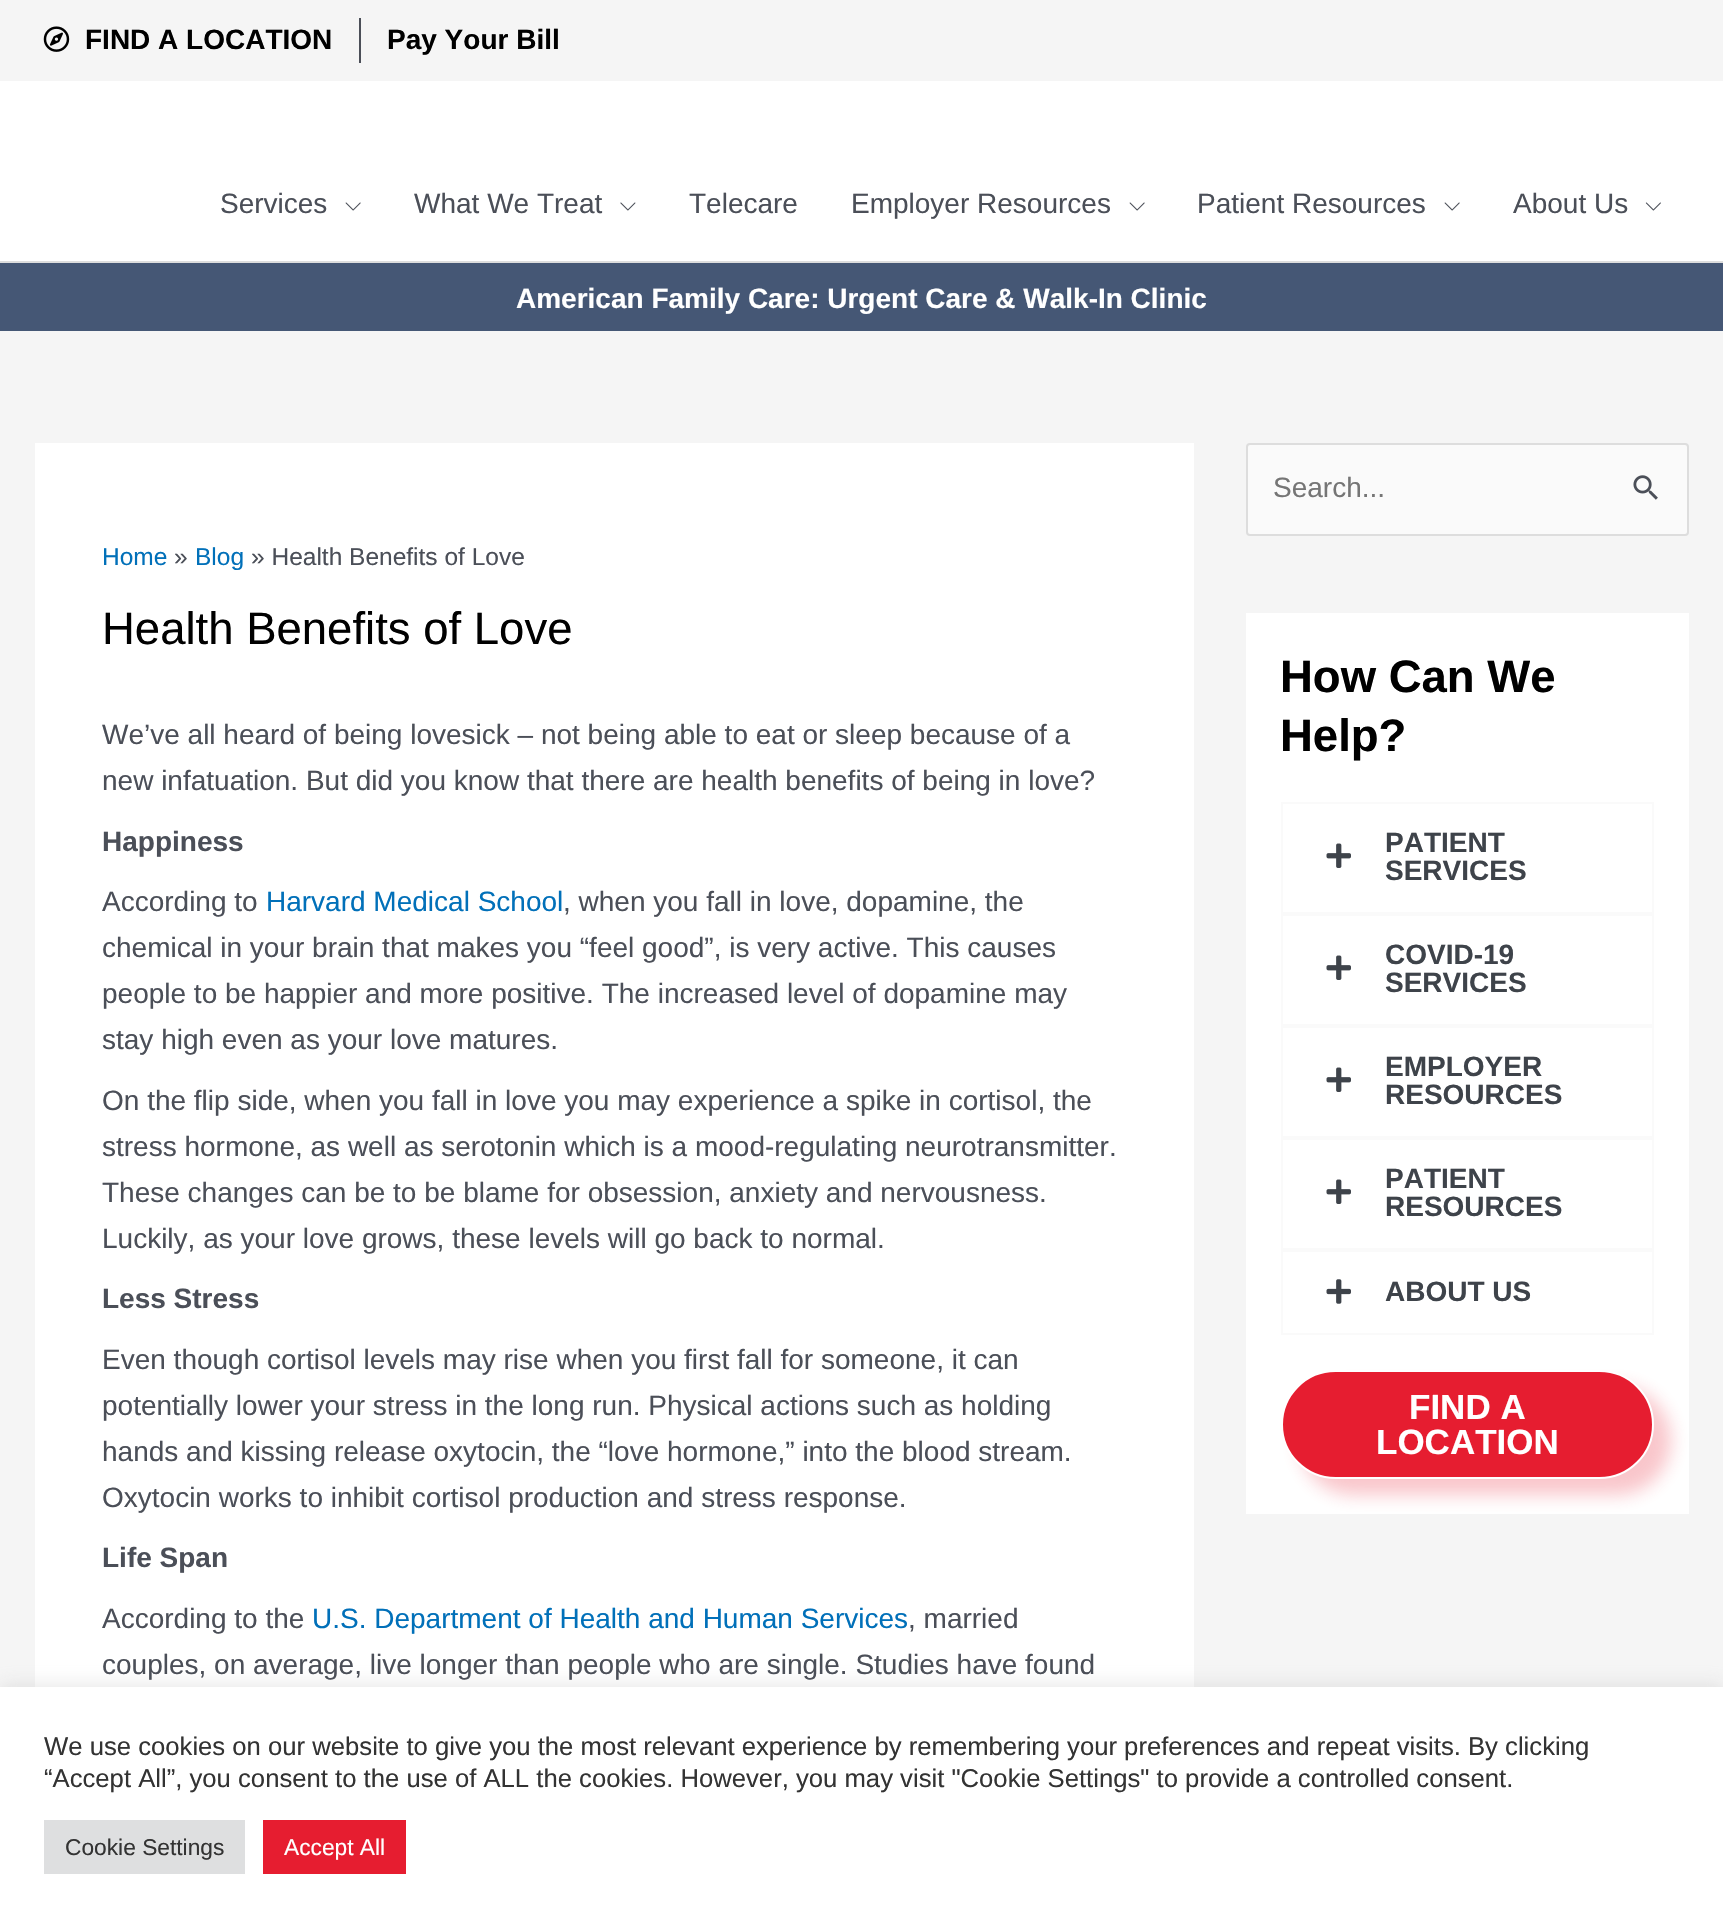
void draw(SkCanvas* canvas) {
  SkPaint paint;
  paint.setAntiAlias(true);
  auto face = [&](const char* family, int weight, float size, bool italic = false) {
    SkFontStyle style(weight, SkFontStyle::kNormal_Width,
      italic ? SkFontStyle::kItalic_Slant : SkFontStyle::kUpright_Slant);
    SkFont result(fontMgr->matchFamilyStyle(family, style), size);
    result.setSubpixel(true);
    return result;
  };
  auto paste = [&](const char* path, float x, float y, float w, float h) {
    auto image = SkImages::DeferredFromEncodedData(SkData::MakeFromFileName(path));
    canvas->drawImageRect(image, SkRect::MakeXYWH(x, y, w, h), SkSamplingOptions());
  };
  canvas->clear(0xfff5f5f5);
  paste("img/1.png", 43, 26, 27, 26);
  {
    const struct { float x, y, w, h; SkColor color; } items[] = {
      {359, 18, 2, 45, 0xff4b4f58},
      {0, 81, 1723, 180, 0xffffffff},
      {0, 261, 1723, 2, 0xffdddddd},
    };
    for (auto [x, y, w, h, color] : items) {
      paint.setColor(color);
      canvas->drawRect(SkRect::MakeXYWH(x, y, w, h), paint);
    }
  }
  paste("img/2.png", 345, 202, 16, 9);
  paste("img/3.png", 620, 202, 16, 9);
  paste("img/2.png", 1129, 202, 16, 9);
  paste("img/2.png", 1444, 202, 16, 9);
  paste("img/4.png", 1645, 202, 16, 9);
  paint.setColor(0xff455775);
  canvas->drawRect(SkRect::MakeXYWH(0, 263, 1723, 68), paint);
  paint.setColor(0xffffffff);
  canvas->drawRect(SkRect::MakeXYWH(35, 443, 1159, 1244), paint);
  paint.setColor(0xfffafafa);
  canvas->drawRoundRect(SkRect::MakeXYWH(1247, 444, 441, 91), 3, 3, paint);
  paint.setStroke(true);
  paint.setStrokeWidth(2);
  paint.setColor(0xffdddddd);
  canvas->drawRoundRect(SkRect::MakeXYWH(1247, 444, 441, 91), 3, 3, paint);
  paste("img/5.png", 1633, 475, 25, 25);
  paint.setStroke(false);
  paint.setColor(0xffffffff);
  canvas->drawRect(SkRect::MakeXYWH(1246, 613, 443, 901), paint);
  paint.setStroke(true);
  paint.setColor(0xfffafafa);
  canvas->drawRect(SkRect::MakeXYWH(1282, 803, 371, 110), paint);
  paste("img/6.png", 1326, 843, 25, 25);
  canvas->drawRect(SkRect::MakeXYWH(1282, 915, 371, 110), paint);
  paste("img/6.png", 1326, 955, 25, 25);
  canvas->drawRect(SkRect::MakeXYWH(1282, 1027, 371, 110), paint);
  paste("img/6.png", 1326, 1067, 25, 25);
  canvas->drawRect(SkRect::MakeXYWH(1282, 1139, 371, 110), paint);
  paste("img/6.png", 1326, 1179, 25, 25);
  canvas->drawRect(SkRect::MakeXYWH(1282, 1251, 371, 83), paint);
  paste("img/7.png", 1326, 1279, 25, 25);
  paint.setStroke(false);
  paint.setColor(0x40e61d30);
  paint.setMaskFilter(SkMaskFilter::MakeBlur(kNormal_SkBlurStyle, 9));
  canvas->drawRoundRect(SkRect::MakeXYWH(1299, 1386, 372, 109), 54.5f, 54.5f, paint);
  paint.setMaskFilter(nullptr);
  paint.setColor(0xffe61d30);
  canvas->drawRoundRect(SkRect::MakeXYWH(1282, 1371, 371, 107), 53.5f, 53.5f, paint);
  paint.setStroke(true);
  paint.setColor(0xffffffff);
  canvas->drawRoundRect(SkRect::MakeXYWH(1282, 1371, 371, 107), 53.5f, 53.5f, paint);
  paint.setStroke(false);
  paint.setColor(0x4dacabab);
  paint.setMaskFilter(SkMaskFilter::MakeBlur(kNormal_SkBlurStyle, 9));
  canvas->drawRect(SkRect::MakeXYWH(0, 1685, 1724, 240), paint);
  paint.setMaskFilter(nullptr);
  {
    const struct { float x, y, w, h; SkColor color; } items[] = {
      {0, 1687, 1723, 239, 0xffffffff},
      {44, 1820, 201, 54, 0xffdedfe0},
      {263, 1820, 143, 54, 0xffe61d30},
    };
    for (auto [x, y, w, h, color] : items) {
      paint.setColor(color);
      canvas->drawRect(SkRect::MakeXYWH(x, y, w, h), paint);
    }
  }
  auto f0 = face("Liberation Sans", 700, 28);
  paint.setColor(0xff000000);
  canvas->drawString("FIND A LOCATION", 85, 49, f0, paint);
  canvas->drawString("Pay Your Bill", 387, 49, f0, paint);
  auto f1 = face("Liberation Sans", 400, 28);
  paint.setColor(0xff4b4f58);
  {
    const struct { const char* s; float x, y; } items[] = {
      {"Services", 220, 213},
      {"What We Treat", 414, 213},
      {"Telecare", 689, 213},
      {"Employer Resources", 851, 213},
      {"Patient Resources", 1197, 213},
      {"About Us", 1513, 213},
    };
    for (auto [s, x, y] : items) {
      canvas->drawString(s, x, y, f1, paint);
    }
  }
  paint.setColor(0xffffffff);
  canvas->drawString("American Family Care: Urgent Care & Walk-In Clinic", 516, 308, f0, paint);
  auto f2 = face("Liberation Sans", 400, 24.5f);
  paint.setColor(0xff0170b9);
  canvas->drawString("Home", 102, 565, f2, paint);
  paint.setColor(0xff4b4f58);
  canvas->drawString("»", 174, 565, f2, paint);
  paint.setColor(0xff0170b9);
  canvas->drawString("Blog", 195, 565, f2, paint);
  paint.setColor(0xff4b4f58);
  canvas->drawString("» Health Benefits of Love", 251, 565, f2, paint);
  auto f3 = face("Liberation Sans", 400, 45.5f);
  paint.setColor(0xff000000);
  canvas->drawString("Health Benefits of Love", 102, 644, f3, paint);
  paint.setColor(0xff4b4f58);
  canvas->drawString("We’ve all heard of being lovesick – not being able to eat or sleep because of a", 102, 744, f1, paint);
  canvas->drawString("new infatuation. But did you know that there are health benefits of being in love?", 102, 790, f1, paint);
  canvas->drawString("Happiness", 102, 851, f0, paint);
  canvas->drawString("According to", 102, 911, f1, paint);
  paint.setColor(0xff0170b9);
  canvas->drawString("Harvard Medical School", 266, 911, f1, paint);
  paint.setColor(0xff4b4f58);
  {
    const struct { const char* s; float x, y; } items[] = {
      {", when you fall in love, dopamine, the", 563, 911},
      {"chemical in your brain that makes you “feel good”, is very active. This causes", 102, 957},
      {"people to be happier and more positive. The increased level of dopamine may", 102, 1003},
      {"stay high even as your love matures.", 102, 1049},
      {"On the flip side, when you fall in love you may experience a spike in cortisol, the", 102, 1110},
      {"stress hormone, as well as serotonin which is a mood-regulating neurotransmitter.", 102, 1156},
      {"These changes can be to be blame for obsession, anxiety and nervousness.", 102, 1202},
      {"Luckily, as your love grows, these levels will go back to normal.", 102, 1248},
    };
    for (auto [s, x, y] : items) {
      canvas->drawString(s, x, y, f1, paint);
    }
  }
  canvas->drawString("Less Stress", 102, 1308, f0, paint);
  {
    const struct { const char* s; float x, y; } items[] = {
      {"Even though cortisol levels may rise when you first fall for someone, it can", 102, 1369},
      {"potentially lower your stress in the long run. Physical actions such as holding", 102, 1415},
      {"hands and kissing release oxytocin, the “love hormone,” into the blood stream.", 102, 1461},
      {"Oxytocin works to inhibit cortisol production and stress response.", 102, 1507},
    };
    for (auto [s, x, y] : items) {
      canvas->drawString(s, x, y, f1, paint);
    }
  }
  canvas->drawString("Life Span", 102, 1567, f0, paint);
  canvas->drawString("According to the", 102, 1628, f1, paint);
  paint.setColor(0xff0170b9);
  canvas->drawString("U.S. Department of Health and Human Services", 312, 1628, f1, paint);
  paint.setColor(0xff4b4f58);
  canvas->drawString(", married", 908, 1628, f1, paint);
  canvas->drawString("couples, on average, live longer than people who are single. Studies have found", 102, 1674, f1, paint);
  paint.setColor(0xff757575);
  canvas->drawString("Search...", 1273, 497, f1, paint);
  auto f4 = face("Liberation Sans", 700, 45.5f);
  paint.setColor(0xff000000);
  canvas->drawString("How Can We", 1280, 692, f4, paint);
  canvas->drawString("Help?", 1280, 751, f4, paint);
  paint.setColor(0xff3e434a);
  {
    const struct { const char* s; float x, y; } items[] = {
      {"PATIENT", 1385, 852},
      {"SERVICES", 1385, 880},
      {"COVID-19", 1385, 964},
      {"SERVICES", 1385, 992},
      {"EMPLOYER", 1385, 1076},
      {"RESOURCES", 1385, 1104},
      {"PATIENT", 1385, 1188},
      {"RESOURCES", 1385, 1216},
      {"ABOUT US", 1385, 1301},
    };
    for (auto [s, x, y] : items) {
      canvas->drawString(s, x, y, f0, paint);
    }
  }
  auto f5 = face("Liberation Sans", 700, 35);
  paint.setColor(0xffffffff);
  canvas->drawString("FIND A", 1409, 1419, f5, paint);
  canvas->drawString("LOCATION", 1376, 1454, f5, paint);
  auto f6 = face("Liberation Sans", 400, 25.67f);
  paint.setColor(0xff333333);
  canvas->drawString("We use cookies on our website to give you the most relevant experience by remembering your preferences and repeat visits. By clicking", 44, 1755, f6, paint);
  canvas->drawString("“Accept All”, you consent to the use of ALL the cookies. However, you may visit \"Cookie Settings\" to provide a controlled consent.", 44, 1787, f6, paint);
  auto f7 = face("Liberation Sans", 400, 22.75f);
  canvas->drawString("Cookie Settings", 65, 1855, f7, paint);
  paint.setColor(0xffffffff);
  canvas->drawString("Accept All", 284, 1855, f7, paint);
}
